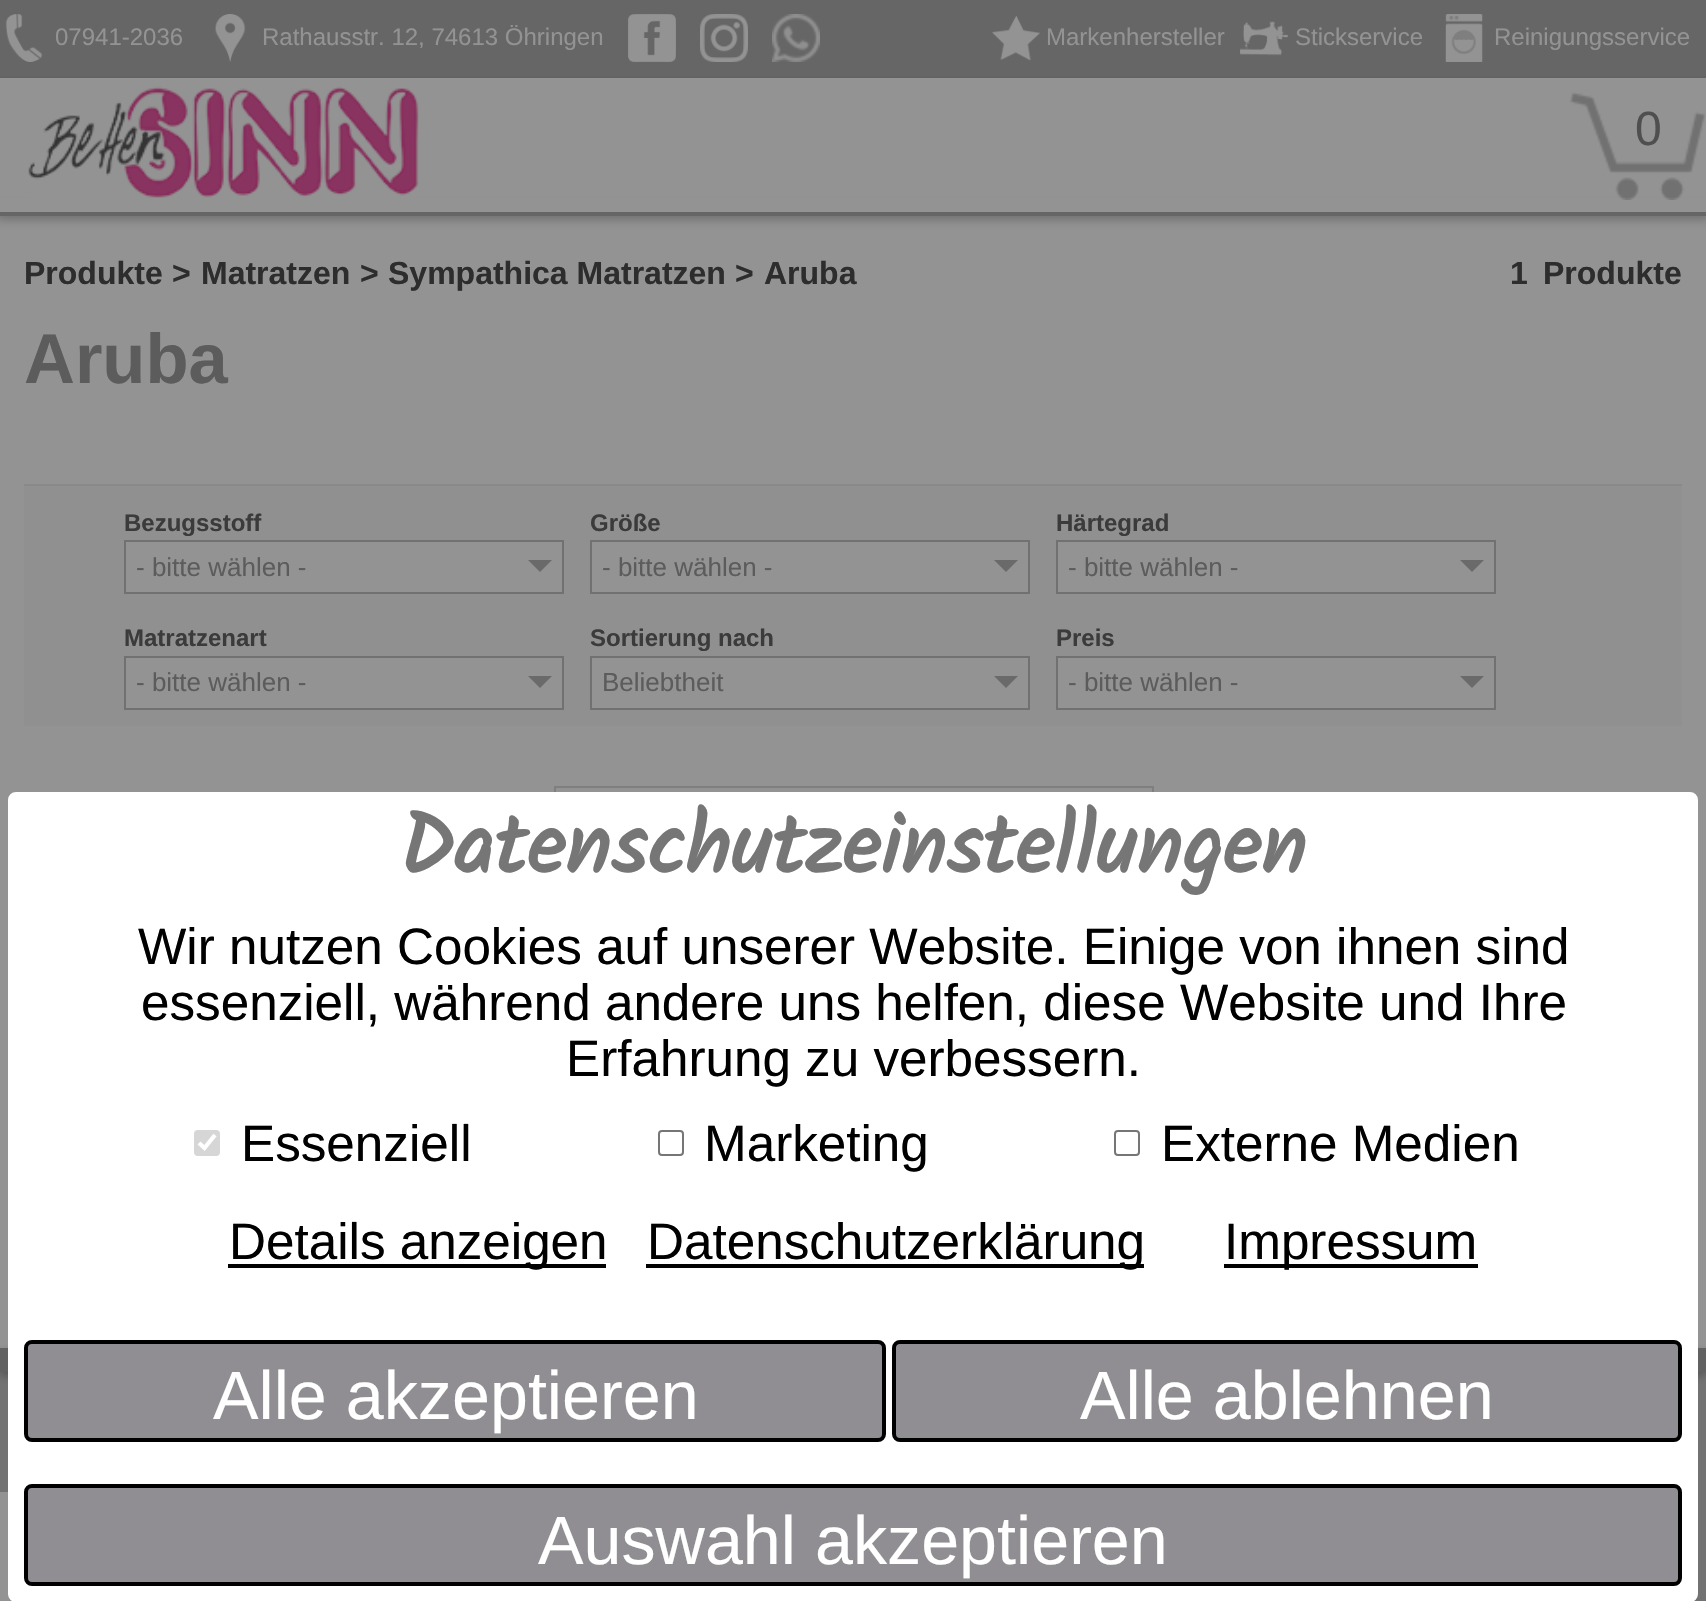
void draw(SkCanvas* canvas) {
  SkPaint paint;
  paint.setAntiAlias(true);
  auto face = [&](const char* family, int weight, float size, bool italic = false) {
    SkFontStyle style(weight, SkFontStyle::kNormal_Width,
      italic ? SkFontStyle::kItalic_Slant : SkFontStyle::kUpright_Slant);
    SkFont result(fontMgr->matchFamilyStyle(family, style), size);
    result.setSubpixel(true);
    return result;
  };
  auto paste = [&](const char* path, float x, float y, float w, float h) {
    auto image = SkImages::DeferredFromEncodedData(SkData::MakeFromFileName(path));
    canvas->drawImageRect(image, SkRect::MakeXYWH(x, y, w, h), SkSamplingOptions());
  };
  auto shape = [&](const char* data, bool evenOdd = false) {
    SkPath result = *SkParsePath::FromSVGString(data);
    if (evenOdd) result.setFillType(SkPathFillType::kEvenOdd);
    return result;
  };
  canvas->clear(0xff939393);
  paint.setColor(0xff636363);
  paint.setMaskFilter(SkMaskFilter::MakeBlur(kNormal_SkBlurStyle, 6));
  canvas->drawRect(SkRect::MakeXYWH(-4, 208, 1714, 10), paint);
  paint.setMaskFilter(nullptr);
  {
    const struct { float x, y, w, h; SkColor color; } items[] = {
      {0, 198, 1706, 14, 0xff939393},
      {0, 0, 1706, 76, 0xff676667},
      {0, 76, 1706, 2, 0xff636363},
    };
    for (auto [x, y, w, h, color] : items) {
      paint.setColor(color);
      canvas->drawRect(SkRect::MakeXYWH(x, y, w, h), paint);
    }
  }
  paste("img/1.png", 5, 14, 38, 48);
  paste("img/2.png", 215, 14, 31, 48);
  paste("img/3.png", 628, 14, 48, 48);
  paste("img/4.png", 700, 14, 48, 48);
  paste("img/5.png", 772, 14, 48, 48);
  paste("img/6.png", 992, 15, 48, 46);
  paste("img/7.png", 1240, 21, 48, 35);
  paste("img/8.png", 1445, 14, 38, 48);
  paste("img/9.png", 28, 86, 391, 112);
  paste("img/10.png", 1570, 92, 136, 108);
  {
    const struct { float x, y, w, h; SkColor color; } items[] = {
      {0, 212, 1706, 4, 0xff676667},
      {24, 486, 1658, 240, 0xff909090},
      {24, 484, 1658, 2, 0xff898989},
    };
    for (auto [x, y, w, h, color] : items) {
      paint.setColor(color);
      canvas->drawRect(SkRect::MakeXYWH(x, y, w, h), paint);
    }
  }
  paint.setColor(0xff939393);
  canvas->drawRect(SkRect::MakeXYWH(125, 541, 438, 52), paint);
  paint.setStroke(true);
  paint.setStrokeWidth(2);
  paint.setColor(0xff717171);
  canvas->drawRect(SkRect::MakeXYWH(125, 541, 438, 52), paint);
  paint.setStroke(false);
  paint.setColor(0xff6a6a6a);
  canvas->drawPath(shape("M528 560H552L540 572Z"), paint);
  paint.setColor(0xff939393);
  canvas->drawRect(SkRect::MakeXYWH(591, 541, 438, 52), paint);
  paint.setStroke(true);
  paint.setColor(0xff717171);
  canvas->drawRect(SkRect::MakeXYWH(591, 541, 438, 52), paint);
  paint.setStroke(false);
  paint.setColor(0xff6a6a6a);
  canvas->drawPath(shape("M994 560H1018L1006 572Z"), paint);
  paint.setColor(0xff939393);
  canvas->drawRect(SkRect::MakeXYWH(1057, 541, 438, 52), paint);
  paint.setStroke(true);
  paint.setColor(0xff717171);
  canvas->drawRect(SkRect::MakeXYWH(1057, 541, 438, 52), paint);
  paint.setStroke(false);
  paint.setColor(0xff6a6a6a);
  canvas->drawPath(shape("M1460 560H1484L1472 572Z"), paint);
  paint.setColor(0xff939393);
  canvas->drawRect(SkRect::MakeXYWH(125, 657, 438, 52), paint);
  paint.setStroke(true);
  paint.setColor(0xff717171);
  canvas->drawRect(SkRect::MakeXYWH(125, 657, 438, 52), paint);
  paint.setStroke(false);
  paint.setColor(0xff6a6a6a);
  canvas->drawPath(shape("M528 676H552L540 688Z"), paint);
  paint.setColor(0xff939393);
  canvas->drawRect(SkRect::MakeXYWH(591, 657, 438, 52), paint);
  paint.setStroke(true);
  paint.setColor(0xff717171);
  canvas->drawRect(SkRect::MakeXYWH(591, 657, 438, 52), paint);
  paint.setStroke(false);
  paint.setColor(0xff6a6a6a);
  canvas->drawPath(shape("M994 676H1018L1006 688Z"), paint);
  paint.setColor(0xff939393);
  canvas->drawRect(SkRect::MakeXYWH(1057, 657, 438, 52), paint);
  paint.setStroke(true);
  paint.setColor(0xff717171);
  canvas->drawRect(SkRect::MakeXYWH(1057, 657, 438, 52), paint);
  paint.setStroke(false);
  paint.setColor(0xff6a6a6a);
  canvas->drawPath(shape("M1460 676H1484L1472 688Z"), paint);
  paint.setStroke(true);
  paint.setColor(0xff7f7f7f);
  canvas->drawRect(SkRect::MakeXYWH(555, 787, 598, 350), paint);
  paint.setStroke(false);
  paint.setColor(0xff727272);
  canvas->drawRect(SkRect::MakeXYWH(0, 1372, 1706, 229), paint);
  paint.setColor(0x662d2d2d);
  paint.setMaskFilter(SkMaskFilter::MakeBlur(kNormal_SkBlurStyle, 4));
  canvas->drawRect(SkRect::MakeXYWH(0, 1352, 1706, 24), paint);
  paint.setMaskFilter(nullptr);
  paint.setColor(0xff616161);
  canvas->drawRect(SkRect::MakeXYWH(0, 1348, 1706, 24), paint);
  paint.setColor(0xff939393);
  canvas->drawRect(SkRect::MakeXYWH(0, 1492, 13, 109), paint);
  paint.setColor(0xffffffff);
  canvas->drawRoundRect(SkRect::MakeXYWH(9, 793, 1688, 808), 7, 7, paint);
  paint.setStroke(true);
  canvas->drawRoundRect(SkRect::MakeXYWH(9, 793, 1688, 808), 7, 7, paint);
  paint.setStroke(false);
  paint.setColor(0xffd6d6d6);
  canvas->drawRoundRect(SkRect::MakeXYWH(194, 1130, 26, 26), 4, 4, paint);
  paint.setStroke(true);
  paint.setStrokeWidth(4.2f);
  paint.setColor(0xffffffff);
  canvas->drawPath(shape("M199 1143L204.5 1148L215 1135"), paint);
  paint.setStrokeWidth(2);
  paint.setColor(0xff767676);
  canvas->drawRoundRect(SkRect::MakeXYWH(659, 1131, 24, 24), 3, 3, paint);
  canvas->drawRoundRect(SkRect::MakeXYWH(1115, 1131, 24, 24), 3, 3, paint);
  paint.setStroke(false);
  {
    const struct { float x, y, w, h; SkColor color; } items[] = {
      {228, 1264, 378, 4, 0xff000000},
      {646, 1264, 498, 4, 0xff000000},
      {1224, 1264, 254, 4, 0xff000000},
    };
    for (auto [x, y, w, h, color] : items) {
      paint.setColor(color);
      canvas->drawRect(SkRect::MakeXYWH(x, y, w, h), paint);
    }
  }
  paint.setColor(0xff908e92);
  canvas->drawRoundRect(SkRect::MakeXYWH(26, 1342, 858, 98), 6, 6, paint);
  paint.setStroke(true);
  paint.setStrokeWidth(4);
  paint.setColor(0xff000000);
  canvas->drawRoundRect(SkRect::MakeXYWH(26, 1342, 858, 98), 6, 6, paint);
  paint.setStroke(false);
  paint.setColor(0xff908e92);
  canvas->drawRoundRect(SkRect::MakeXYWH(894, 1342, 786, 98), 6, 6, paint);
  paint.setStroke(true);
  paint.setColor(0xff000000);
  canvas->drawRoundRect(SkRect::MakeXYWH(894, 1342, 786, 98), 6, 6, paint);
  paint.setStroke(false);
  paint.setColor(0xff908e92);
  canvas->drawRoundRect(SkRect::MakeXYWH(26, 1486, 1654, 98), 6, 6, paint);
  paint.setStroke(true);
  paint.setColor(0xff000000);
  canvas->drawRoundRect(SkRect::MakeXYWH(26, 1486, 1654, 98), 6, 6, paint);
  auto f0 = face("Liberation Sans", 400, 24);
  paint.setStroke(false);
  paint.setColor(0xff939393);
  {
    const struct { const char* s; float x, y; } items[] = {
      {"07941-2036", 55, 45},
      {"Rathausstr. 12, 74613 Öhringen", 262, 45},
      {"Markenhersteller", 1046, 45},
      {"Stickservice", 1295, 45},
      {"Reinigungsservice", 1494, 45},
    };
    for (auto [s, x, y] : items) {
      canvas->drawString(s, x, y, f0, paint);
    }
  }
  auto f1 = face("Liberation Sans", 400, 48);
  paint.setColor(0xff4f4f4f);
  canvas->drawString("0", 1635, 145, f1, paint);
  auto f2 = face("Liberation Sans", 700, 32);
  paint.setColor(0xff2d2d2d);
  {
    const struct { const char* s; float x, y; } items[] = {
      {"Produkte", 24, 284},
      {">", 172, 284},
      {"Matratzen", 201, 284},
      {">", 360, 284},
      {"Sympathica Matratzen", 388, 284},
      {">", 735, 284},
      {"Aruba", 764, 284},
      {"1", 1510, 284},
      {"Produkte", 1543, 284},
    };
    for (auto [s, x, y] : items) {
      canvas->drawString(s, x, y, f2, paint);
    }
  }
  auto f3 = face("Liberation Sans", 700, 70.5f);
  paint.setColor(0xff5c5c5c);
  canvas->drawString("Aruba", 24, 383, f3, paint);
  auto f4 = face("Liberation Sans", 700, 24);
  paint.setColor(0xff3b3b3b);
  canvas->drawString("Bezugsstoff", 124, 531, f4, paint);
  auto f5 = face("Liberation Sans", 400, 26);
  paint.setColor(0xff5c5c5c);
  canvas->drawString("- bitte wählen -", 136, 576, f5, paint);
  paint.setColor(0xff3b3b3b);
  canvas->drawString("Größe", 590, 531, f4, paint);
  paint.setColor(0xff5c5c5c);
  canvas->drawString("- bitte wählen -", 602, 576, f5, paint);
  paint.setColor(0xff3b3b3b);
  canvas->drawString("Härtegrad", 1056, 531, f4, paint);
  paint.setColor(0xff5c5c5c);
  canvas->drawString("- bitte wählen -", 1068, 576, f5, paint);
  paint.setColor(0xff3b3b3b);
  canvas->drawString("Matratzenart", 124, 646, f4, paint);
  paint.setColor(0xff5c5c5c);
  canvas->drawString("- bitte wählen -", 136, 691, f5, paint);
  paint.setColor(0xff3b3b3b);
  canvas->drawString("Sortierung nach", 590, 646, f4, paint);
  paint.setColor(0xff5c5c5c);
  canvas->drawString("Beliebtheit", 602, 691, f5, paint);
  paint.setColor(0xff3b3b3b);
  canvas->drawString("Preis", 1056, 646, f4, paint);
  paint.setColor(0xff5c5c5c);
  canvas->drawString("- bitte wählen -", 1068, 691, f5, paint);
  auto f6 = face("Kalam", 700, 85.25f);
  paint.setColor(0xff767676);
  canvas->drawString("Datenschutzeinstellungen", 399, 874, f6, paint);
  auto f7 = face("Liberation Sans", 400, 51.2f);
  paint.setColor(0xff000000);
  {
    const struct { const char* s; float x, y; } items[] = {
      {"Wir nutzen Cookies auf unserer Website. Einige von ihnen sind", 138, 964},
      {"essenziell, während andere uns helfen, diese Website und Ihre", 141, 1020},
      {"Erfahrung zu verbessern.", 566, 1076},
      {"Essenziell", 241, 1161},
      {"Marketing", 704, 1161},
      {"Externe Medien", 1161, 1161},
      {"Details anzeigen", 229, 1259},
      {"Datenschutzerklärung", 647, 1259},
      {"Impressum", 1224, 1259},
    };
    for (auto [s, x, y] : items) {
      canvas->drawString(s, x, y, f7, paint);
    }
  }
  auto f8 = face("Liberation Sans", 400, 68.25f);
  paint.setColor(0xffffffff);
  {
    const struct { const char* s; float x, y; } items[] = {
      {"Alle akzeptieren", 213, 1419},
      {"Alle ablehnen", 1080, 1419},
      {"Auswahl akzeptieren", 538, 1564},
    };
    for (auto [s, x, y] : items) {
      canvas->drawString(s, x, y, f8, paint);
    }
  }
}
